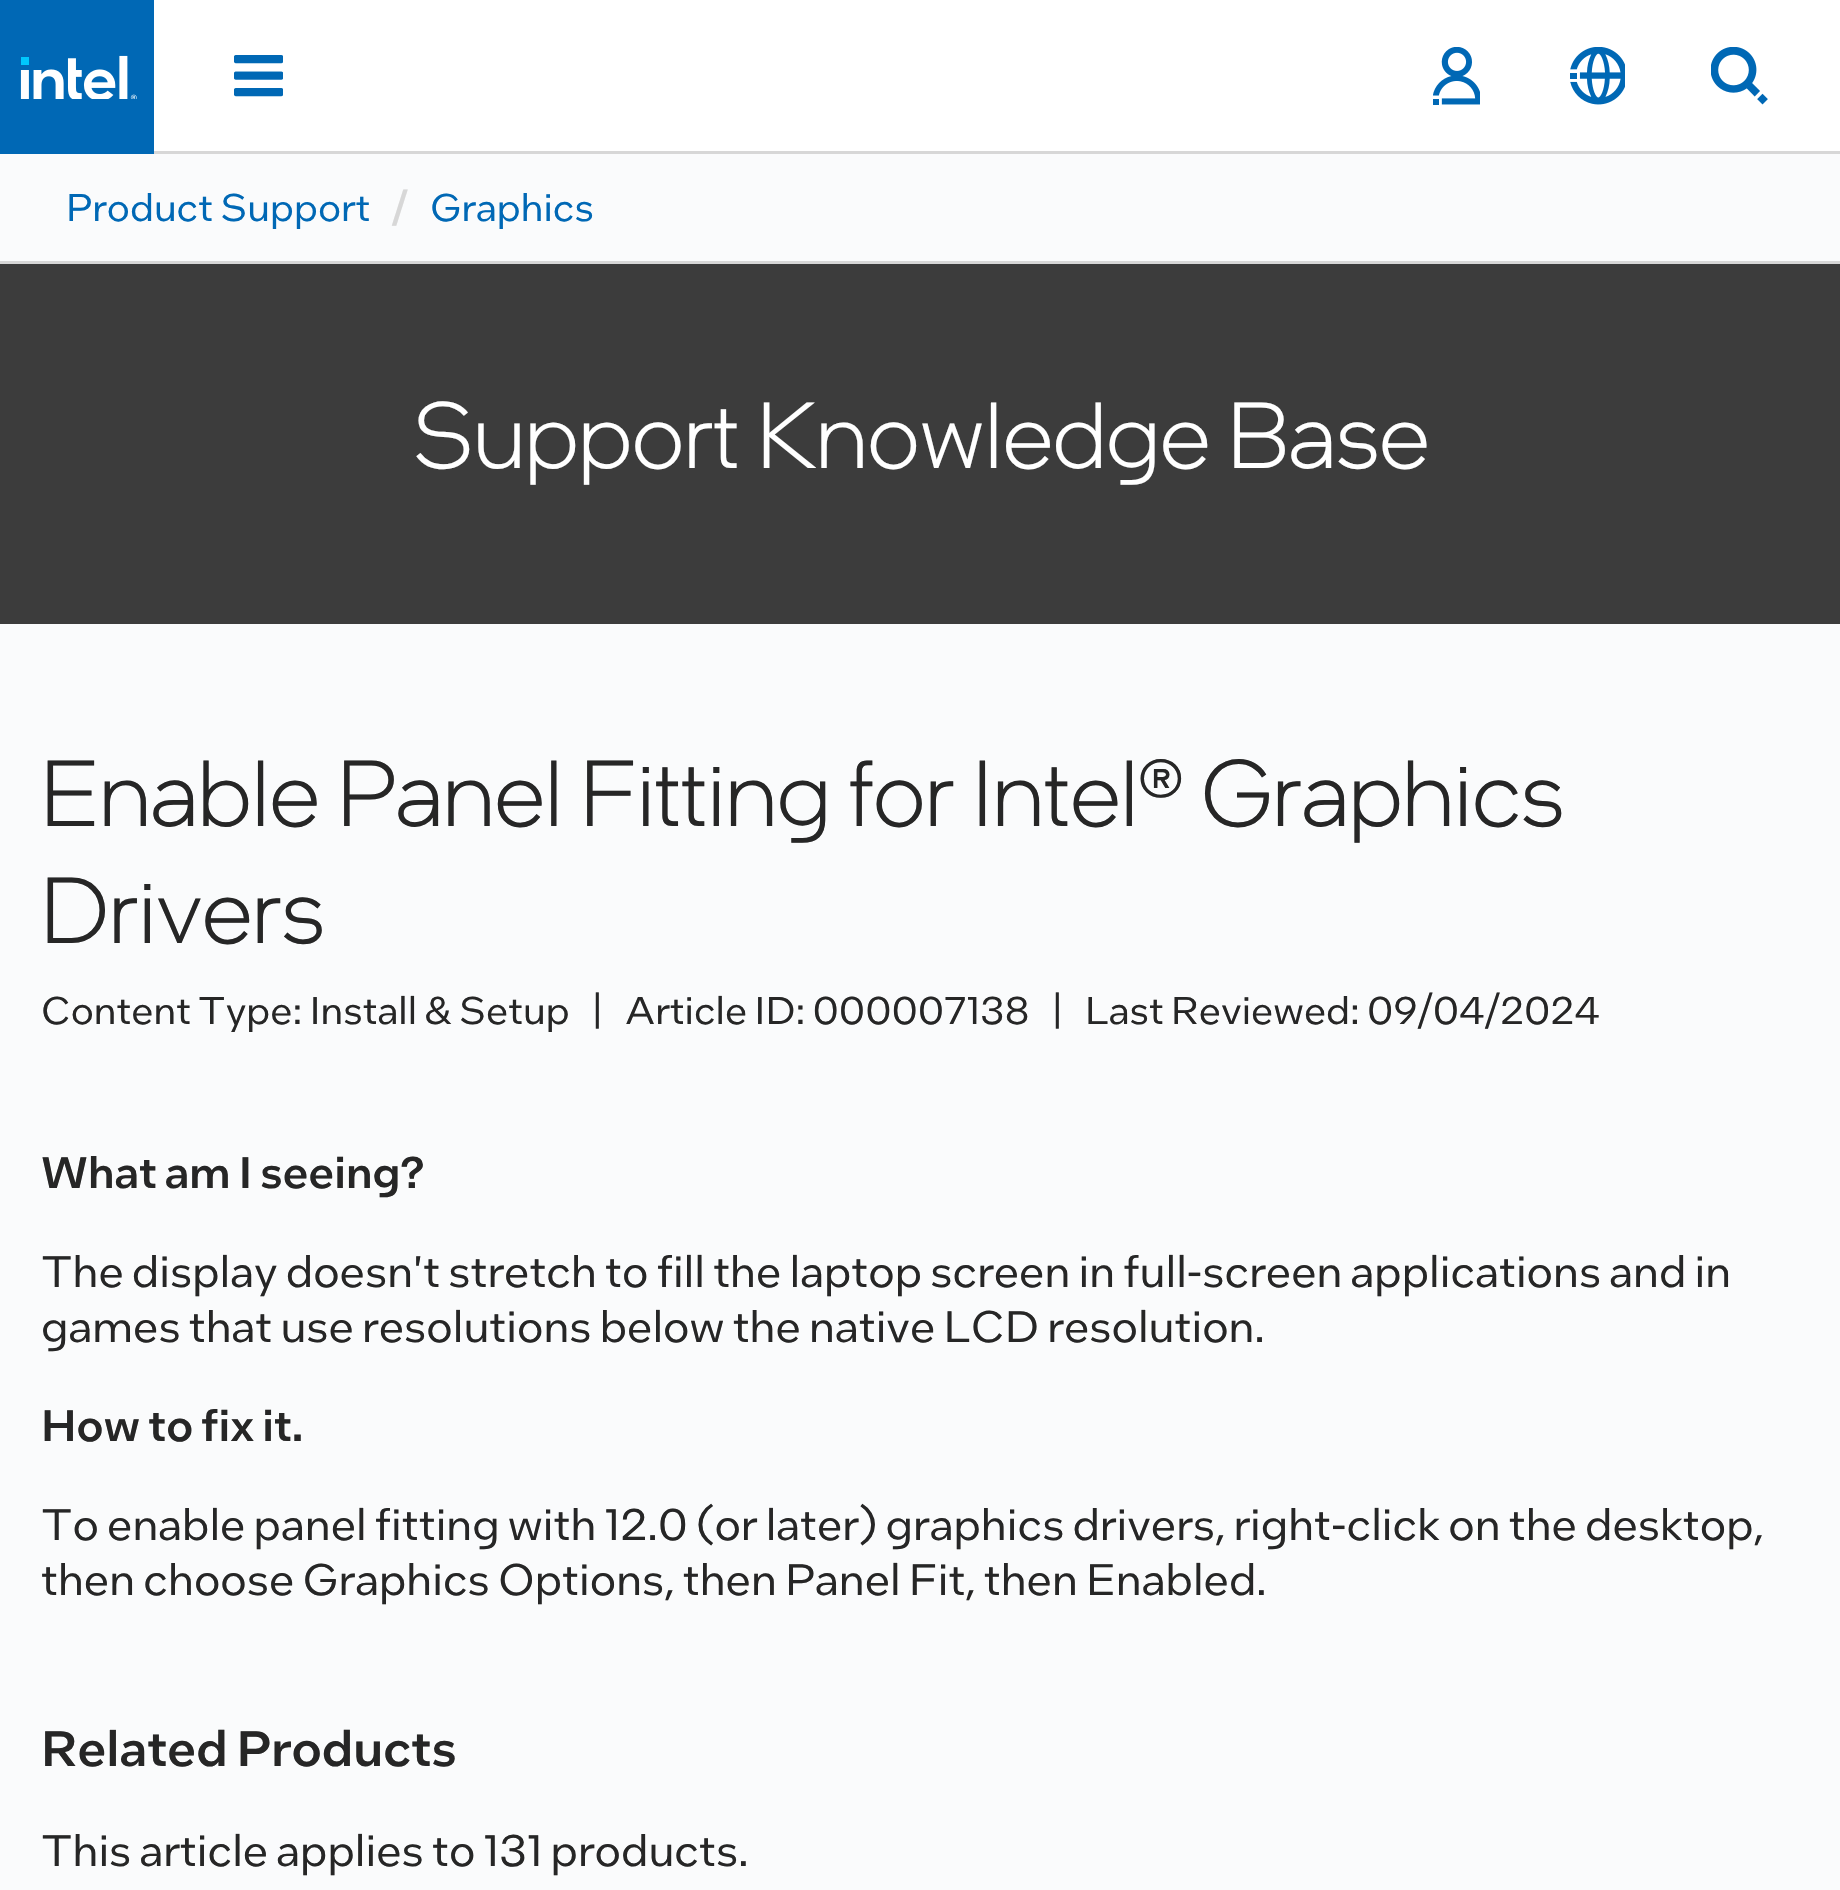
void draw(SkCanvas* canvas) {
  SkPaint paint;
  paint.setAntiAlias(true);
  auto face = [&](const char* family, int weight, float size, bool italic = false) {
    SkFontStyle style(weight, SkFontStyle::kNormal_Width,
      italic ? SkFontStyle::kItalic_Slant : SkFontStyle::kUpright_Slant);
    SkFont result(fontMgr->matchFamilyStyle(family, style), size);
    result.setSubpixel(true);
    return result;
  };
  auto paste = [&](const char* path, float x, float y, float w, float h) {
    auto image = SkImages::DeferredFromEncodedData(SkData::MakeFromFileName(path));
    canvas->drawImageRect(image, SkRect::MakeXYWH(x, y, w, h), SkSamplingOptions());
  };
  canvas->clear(0xfffafbfc);
  paint.setColor(0xffffffff);
  canvas->drawRect(SkRect::MakeXYWH(154, 0, 1686, 151), paint);
  paint.setColor(0xff0068b5);
  canvas->drawRect(SkRect::MakeXYWH(0, 0, 154, 154), paint);
  paste("img/1.png", 20, 55, 117, 44);
  paste("img/2.png", 234, 55, 49, 42);
  paste("img/3.png", 1433, 47, 47, 58);
  paste("img/4.png", 1570, 47, 55, 58);
  paste("img/5.png", 1711, 47, 57, 58);
  {
    const struct { float x, y, w, h; SkColor color; } items[] = {
      {154, 151, 1686, 3, 0xffd7d7d7},
      {0, 261, 1840, 3, 0xffd7d7d7},
      {0, 264, 1840, 360, 0xff3c3c3c},
    };
    for (auto [x, y, w, h, color] : items) {
      paint.setColor(color);
      canvas->drawRect(SkRect::MakeXYWH(x, y, w, h), paint);
    }
  }
  auto f0 = face("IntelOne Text", 400, 38.5f);
  paint.setColor(0xff0068b5);
  canvas->drawString("Product Support", 66, 221, f0, paint);
  auto f1 = face("IntelOne Text", 500, 38.5f);
  paint.setColor(0xffd7d7d7);
  canvas->drawString("/", 392, 221, f1, paint);
  paint.setColor(0xff0068b5);
  canvas->drawString("Graphics", 430, 221, f0, paint);
  auto f2 = face("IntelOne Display", 300, 93.5f);
  paint.setColor(0xffffffff);
  canvas->drawString("Support Knowledge Base", 413, 468, f2, paint);
  paint.setColor(0xff262626);
  canvas->drawString("Enable Panel Fitting for Intel® Graphics", 41, 826, f2, paint);
  canvas->drawString("Drivers", 41, 943, f2, paint);
  canvas->drawString("Content Type: Install & Setup   |   Article ID: 000007138   |   Last Reviewed: 09/04/2024", 41, 1024, f0, paint);
  auto f3 = face("IntelOne Text", 500, 44);
  canvas->drawString("What am I seeing?", 41, 1188, f3, paint);
  auto f4 = face("IntelOne Text", 400, 44);
  canvas->drawString("The display doesn't stretch to fill the laptop screen in full-screen applications and in", 41, 1287, f4, paint);
  canvas->drawString("games that use resolutions below the native LCD resolution.", 41, 1342, f4, paint);
  canvas->drawString("How to fix it.", 41, 1441, f3, paint);
  canvas->drawString("To enable panel fitting with 12.0 (or later) graphics drivers, right-click on the desktop,", 41, 1540, f4, paint);
  canvas->drawString("then choose Graphics Options, then Panel Fit, then Enabled.", 41, 1595, f4, paint);
  auto f5 = face("IntelOne Text", 500, 49.5f);
  canvas->drawString("Related Products", 41, 1766, f5, paint);
  canvas->drawString("This article applies to 131 products.", 41, 1866, f4, paint);
}
